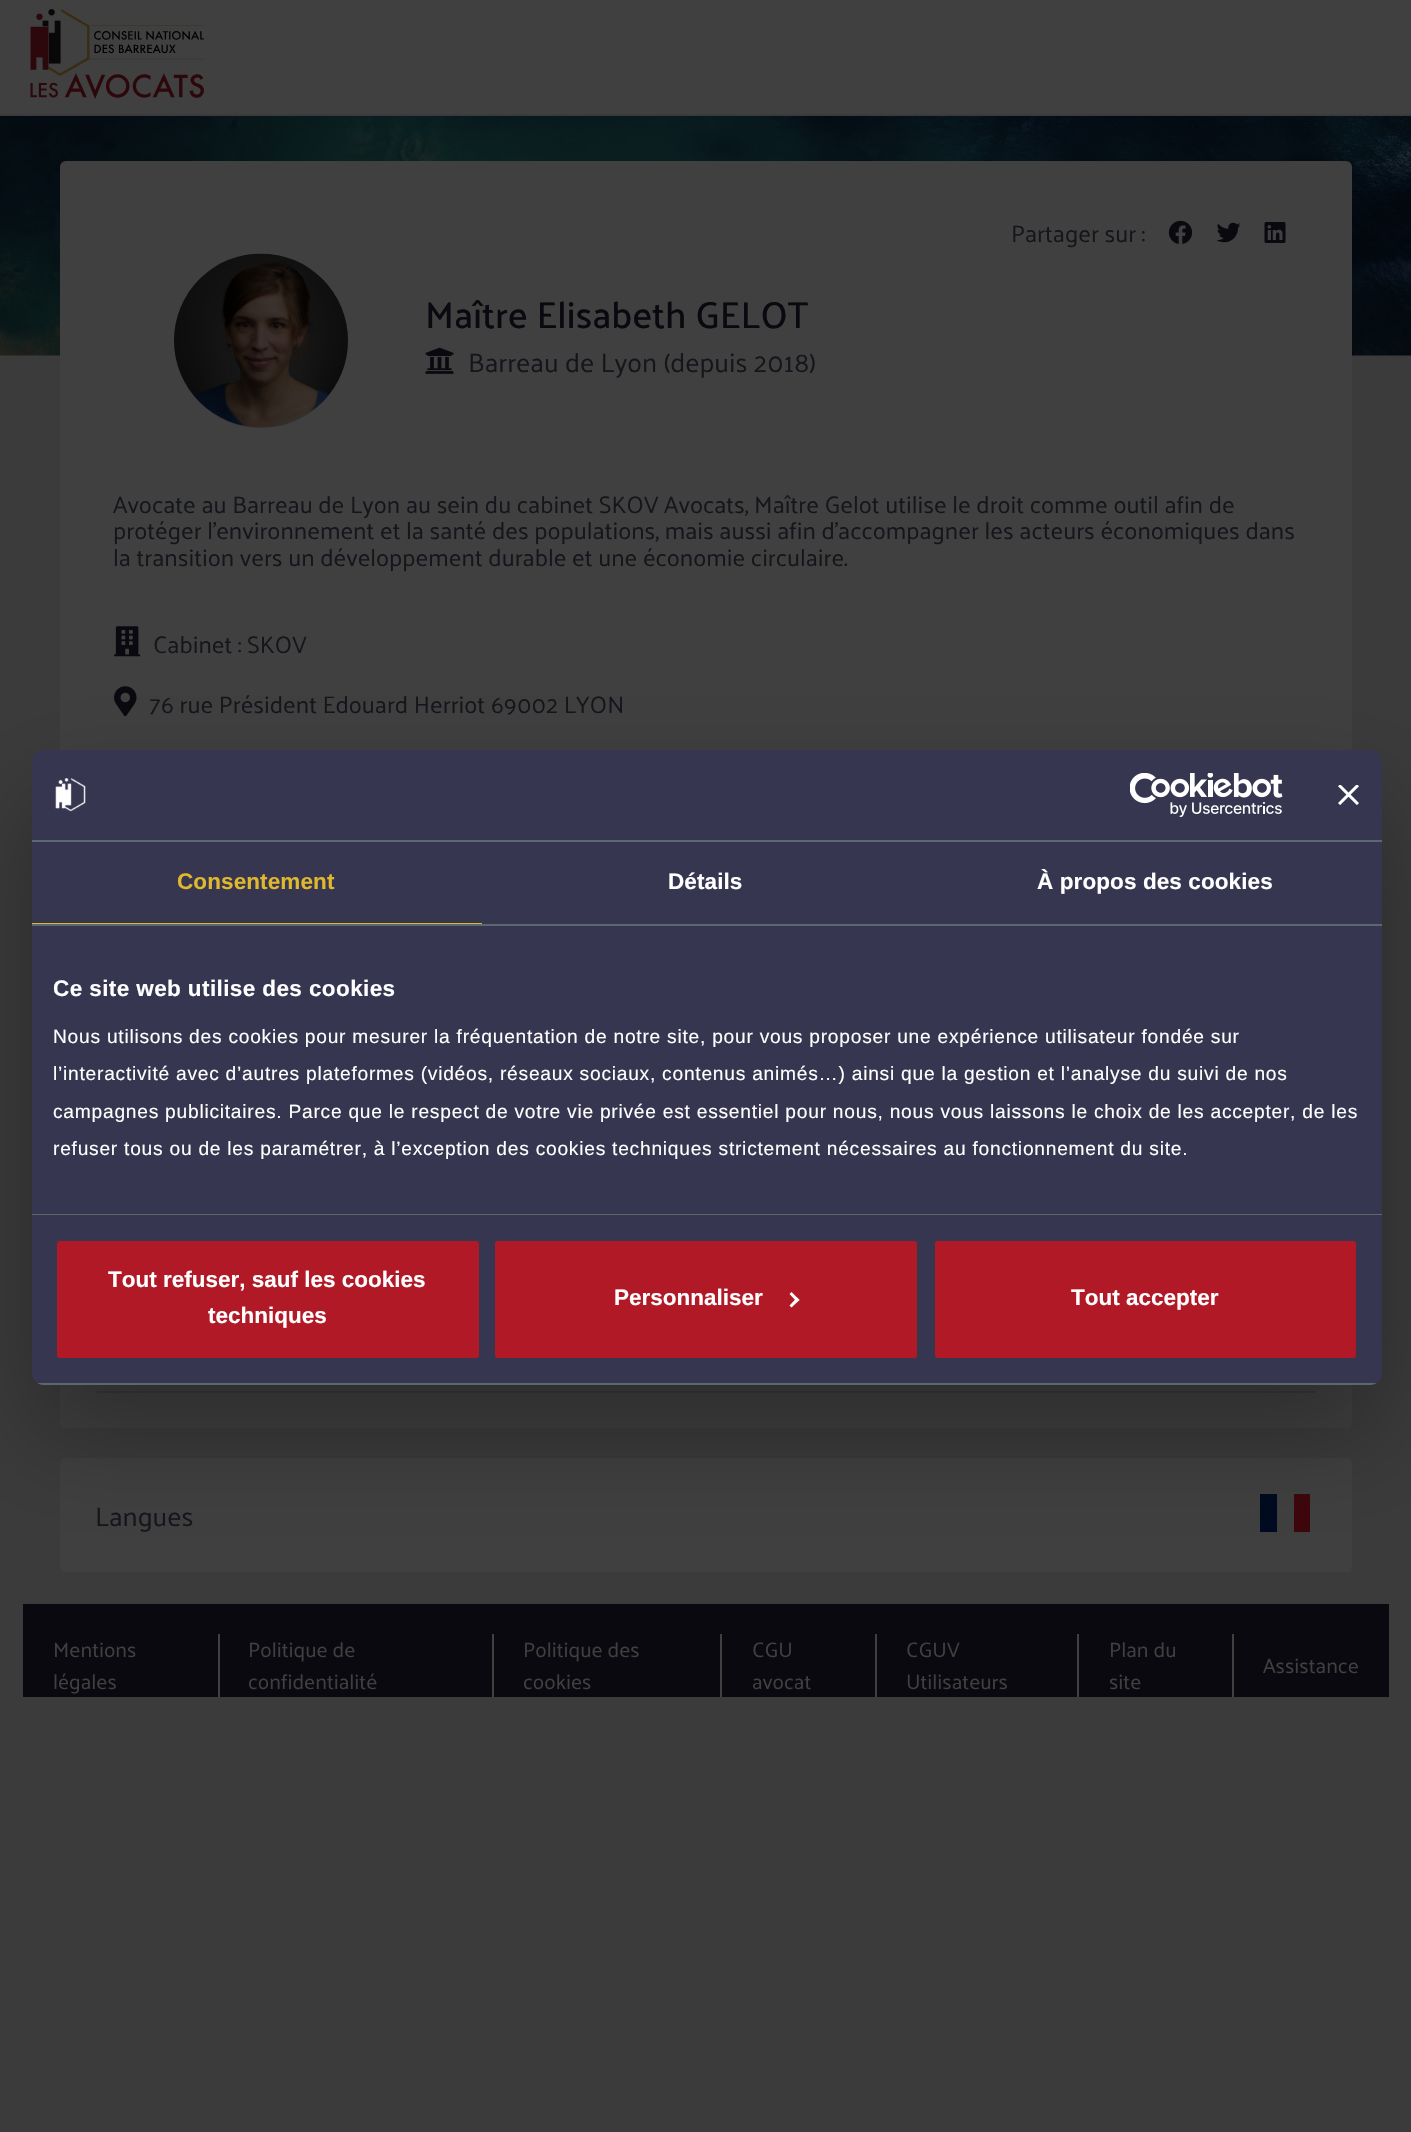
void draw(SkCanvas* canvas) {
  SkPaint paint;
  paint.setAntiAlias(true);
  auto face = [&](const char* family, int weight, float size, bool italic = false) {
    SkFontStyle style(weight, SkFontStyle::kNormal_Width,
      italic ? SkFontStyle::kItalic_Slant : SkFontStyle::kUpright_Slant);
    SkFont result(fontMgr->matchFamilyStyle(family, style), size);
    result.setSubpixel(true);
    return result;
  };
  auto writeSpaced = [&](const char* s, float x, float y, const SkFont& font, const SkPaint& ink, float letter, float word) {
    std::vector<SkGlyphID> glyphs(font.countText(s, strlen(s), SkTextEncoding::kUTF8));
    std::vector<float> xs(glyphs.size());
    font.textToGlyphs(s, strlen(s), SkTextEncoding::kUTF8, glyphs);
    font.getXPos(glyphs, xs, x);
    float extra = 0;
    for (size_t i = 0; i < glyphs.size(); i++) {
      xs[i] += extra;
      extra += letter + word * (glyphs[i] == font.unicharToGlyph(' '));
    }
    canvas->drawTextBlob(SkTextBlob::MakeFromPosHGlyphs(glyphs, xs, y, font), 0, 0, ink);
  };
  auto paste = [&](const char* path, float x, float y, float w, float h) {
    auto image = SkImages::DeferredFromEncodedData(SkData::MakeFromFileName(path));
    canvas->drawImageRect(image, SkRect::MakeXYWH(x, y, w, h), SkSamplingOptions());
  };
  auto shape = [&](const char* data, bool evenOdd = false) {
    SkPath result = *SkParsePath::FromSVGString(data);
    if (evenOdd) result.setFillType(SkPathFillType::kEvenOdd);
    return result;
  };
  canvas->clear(0xff3b3b3b);
  paint.setColor(0xff404040);
  canvas->drawRect(SkRect::MakeXYWH(0, 0, 1411, 114), paint);
  paste("img/1.png", 30, 9, 174, 90);
  paste("img/2.png", 0, 116, 1411, 240);
  canvas->drawRoundRect(SkRect::MakeXYWH(60, 161, 1292, 922), 6, 6, paint);
  paste("img/3.png", 1168, 220, 25, 24);
  paste("img/4.png", 1216, 222, 25, 21);
  paste("img/5.png", 1264, 222, 22, 21);
  paint.setColor(0xff363636);
  canvas->drawCircle(261, 341, 88.5f, paint);
  paint.setStroke(true);
  paint.setStrokeWidth(3);
  paint.setColor(0xff404040);
  canvas->drawCircle(261, 341, 88.5f, paint);
  paste("img/6.png", 174, 253, 174, 175);
  paste("img/7.png", 425, 347, 29, 27);
  paste("img/8.png", 114, 626, 27, 31);
  paste("img/9.png", 114, 686, 23, 31);
  paint.setStroke(false);
  canvas->drawRoundRect(SkRect::MakeXYWH(60, 1113, 1292, 315), 6, 6, paint);
  paint.setColor(0xff373839);
  canvas->drawRect(SkRect::MakeXYWH(96, 1391, 1220, 2), paint);
  paint.setColor(0xff404040);
  canvas->drawRoundRect(SkRect::MakeXYWH(60, 1458, 1292, 114), 6, 6, paint);
  {
    const struct { float x, y, w, h; SkColor color; } items[] = {
      {1260, 1494, 17, 38, 0xff000a20},
      {1294, 1494, 16, 38, 0xff3d060c},
      {23, 1604, 1366, 93, 0xff09090f},
      {218, 1634, 2, 63, 0xff404040},
      {492, 1634, 2, 63, 0xff404040},
      {720, 1634, 2, 63, 0xff404040},
      {875, 1634, 2, 63, 0xff404040},
      {1077, 1634, 2, 63, 0xff404040},
      {1232, 1634, 2, 63, 0xff404040},
    };
    for (auto [x, y, w, h, color] : items) {
      paint.setColor(color);
      canvas->drawRect(SkRect::MakeXYWH(x, y, w, h), paint);
    }
  }
  paint.setColor(0x4d000000);
  paint.setMaskFilter(SkMaskFilter::MakeBlur(kNormal_SkBlurStyle, 51));
  canvas->drawRoundRect(SkRect::MakeXYWH(32, 798, 1350, 635), 12, 12, paint);
  paint.setMaskFilter(nullptr);
  paint.setColor(0xff373650);
  canvas->drawRoundRect(SkRect::MakeXYWH(32, 750, 1350, 635), 12, 12, paint);
  paint.setColor(0xff5d686e);
  canvas->drawRect(SkRect::MakeXYWH(32, 840, 1350, 2), paint);
  paste("img/10.png", 55, 778, 31, 34);
  paste("img/11.png", 1130, 773, 153, 44);
  paste("img/12.png", 1338, 785, 21, 20);
  {
    const struct { float x, y, w, h; SkColor color; } items[] = {
      {32, 924, 1350, 2, 0xff5d686e},
      {32, 923, 450, 1, 0xffdfb82d},
      {32, 1214, 1350, 1, 0xff5d686e},
    };
    for (auto [x, y, w, h, color] : items) {
      paint.setColor(color);
      canvas->drawRect(SkRect::MakeXYWH(x, y, w, h), paint);
    }
  }
  canvas->save();
  canvas->clipPath(shape("M44 750H1370C1376.5 750 1382 755.5 1382 762V1373C1382 1379.5 1376.5 1385 1370 1385H44C37.5 1385 32 1379.5 32 1373V762C32 755.5 37.5 750 44 750Z"), true);
  canvas->drawRect(SkRect::MakeXYWH(32, 1383, 1350, 2), paint);
  canvas->restore();
  paint.setColor(0xffb11926);
  canvas->drawRoundRect(SkRect::MakeXYWH(55.5f, 1239.5f, 425, 120), 4.5f, 4.5f, paint);
  paint.setStroke(true);
  paint.setColor(0xff373650);
  canvas->drawRoundRect(SkRect::MakeXYWH(55.5f, 1239.5f, 425, 120), 4.5f, 4.5f, paint);
  paint.setStroke(false);
  paint.setColor(0xffb11926);
  canvas->drawRoundRect(SkRect::MakeXYWH(493.5f, 1239.5f, 425, 120), 4.5f, 4.5f, paint);
  paint.setStroke(true);
  paint.setColor(0xff373650);
  canvas->drawRoundRect(SkRect::MakeXYWH(493.5f, 1239.5f, 425, 120), 4.5f, 4.5f, paint);
  paint.setStroke(false);
  paint.setColor(0xffffffff);
  canvas->drawPath(shape("M791.5 1292L799.5 1300L797 1302L789.5 1294Z"), paint);
  canvas->drawPath(shape("M797 1297.5L799.5 1300L791.5 1307.5L789.5 1305.5Z"), paint);
  paint.setColor(0xffb11926);
  canvas->drawRoundRect(SkRect::MakeXYWH(933.5f, 1239.5f, 424, 120), 4.5f, 4.5f, paint);
  paint.setStroke(true);
  paint.setColor(0xff373650);
  canvas->drawRoundRect(SkRect::MakeXYWH(933.5f, 1239.5f, 424, 120), 4.5f, 4.5f, paint);
  auto f0 = face("Palanquin", 400, 24);
  paint.setStroke(false);
  paint.setColor(0xff14161b);
  canvas->drawString("Partager sur :", 1011, 242, f0, paint);
  auto f1 = face("Palanquin", 500, 37.5f);
  paint.setColor(0xff09090f);
  canvas->drawString("Maître Elisabeth GELOT", 425, 328, f1, paint);
  auto f2 = face("Palanquin", 400, 27);
  paint.setColor(0xff14161b);
  canvas->drawString("Barreau de Lyon (depuis 2018)", 468, 372, f2, paint);
  {
    const struct { const char* s; float x, y; } items[] = {
      {"Avocate au Barreau de Lyon au sein du cabinet SKOV Avocats, Maître Gelot utilise le droit comme outil afin de", 113, 513},
      {"protéger l'environnement et la santé des populations, mais aussi afin d'accompagner les acteurs économiques dans", 113, 539},
      {"la transition vers un développement durable et une économie circulaire.", 113, 566},
      {"Cabinet : SKOV", 153, 653},
      {"76 rue Président Edouard Herriot 69002 LYON", 149, 713},
    };
    for (auto [s, x, y] : items) {
      canvas->drawString(s, x, y, f0, paint);
    }
  }
  canvas->drawString("Langues", 95, 1526, f2, paint);
  auto f3 = face("Palanquin", 400, 21);
  paint.setColor(0xff404040);
  {
    const struct { const char* s; float x, y; } items[] = {
      {"Mentions", 53, 1657},
      {"légales", 53, 1689},
      {"Politique de", 248, 1657},
      {"confidentialité", 248, 1689},
      {"Politique des", 523, 1657},
      {"cookies", 523, 1689},
      {"CGU", 752, 1657},
      {"avocat", 752, 1689},
      {"CGUV", 906, 1657},
      {"Utilisateurs", 906, 1689},
      {"Plan du", 1109, 1657},
      {"site", 1109, 1689},
      {"Assistance", 1263, 1673},
    };
    for (auto [s, x, y] : items) {
      canvas->drawString(s, x, y, f3, paint);
    }
  }
  auto f4 = face("Liberation Sans", 700, 22.5f);
  paint.setColor(0xffdfb82d);
  writeSpaced("Consentement", 177, 889, f4, paint, 0.1f, 0);
  paint.setColor(0xffffffff);
  writeSpaced("Détails", 668, 889, f4, paint, 0.1f, 0);
  writeSpaced("À propos des cookies", 1037, 889, f4, paint, 0.1f, 0);
  writeSpaced("Ce site web utilise des cookies", 53, 996, f4, paint, 0.4f, 0);
  auto f5 = face("Liberation Sans", 400, 19.2f);
  {
    const struct { const char* s; float x, y; } items[] = {
      {"Nous utilisons des cookies pour mesurer la fréquentation de notre site, pour vous proposer une expérience utilisateur fondée sur", 53, 1043},
      {"l’interactivité avec d’autres plateformes (vidéos, réseaux sociaux, contenus animés…) ainsi que la gestion et l’analyse du suivi de nos", 53, 1080},
      {"campagnes publicitaires. Parce que le respect de votre vie privée est essentiel pour nous, nous vous laissons le choix de les accepter, de les", 53, 1118},
      {"refuser tous ou de les paramétrer, à l’exception des cookies techniques strictement nécessaires au fonctionnement du site.", 53, 1155},
    };
    for (auto [s, x, y] : items) {
      writeSpaced(s, x, y, f5, paint, 0.75f, 0);
    }
  }
  {
    const struct { const char* s; float x, y; } items[] = {
      {"Tout refuser, sauf les cookies", 108, 1287},
      {"techniques", 208, 1323},
      {"Personnaliser", 614, 1305},
      {"Tout accepter", 1071, 1305},
    };
    for (auto [s, x, y] : items) {
      canvas->drawString(s, x, y, f4, paint);
    }
  }
}
